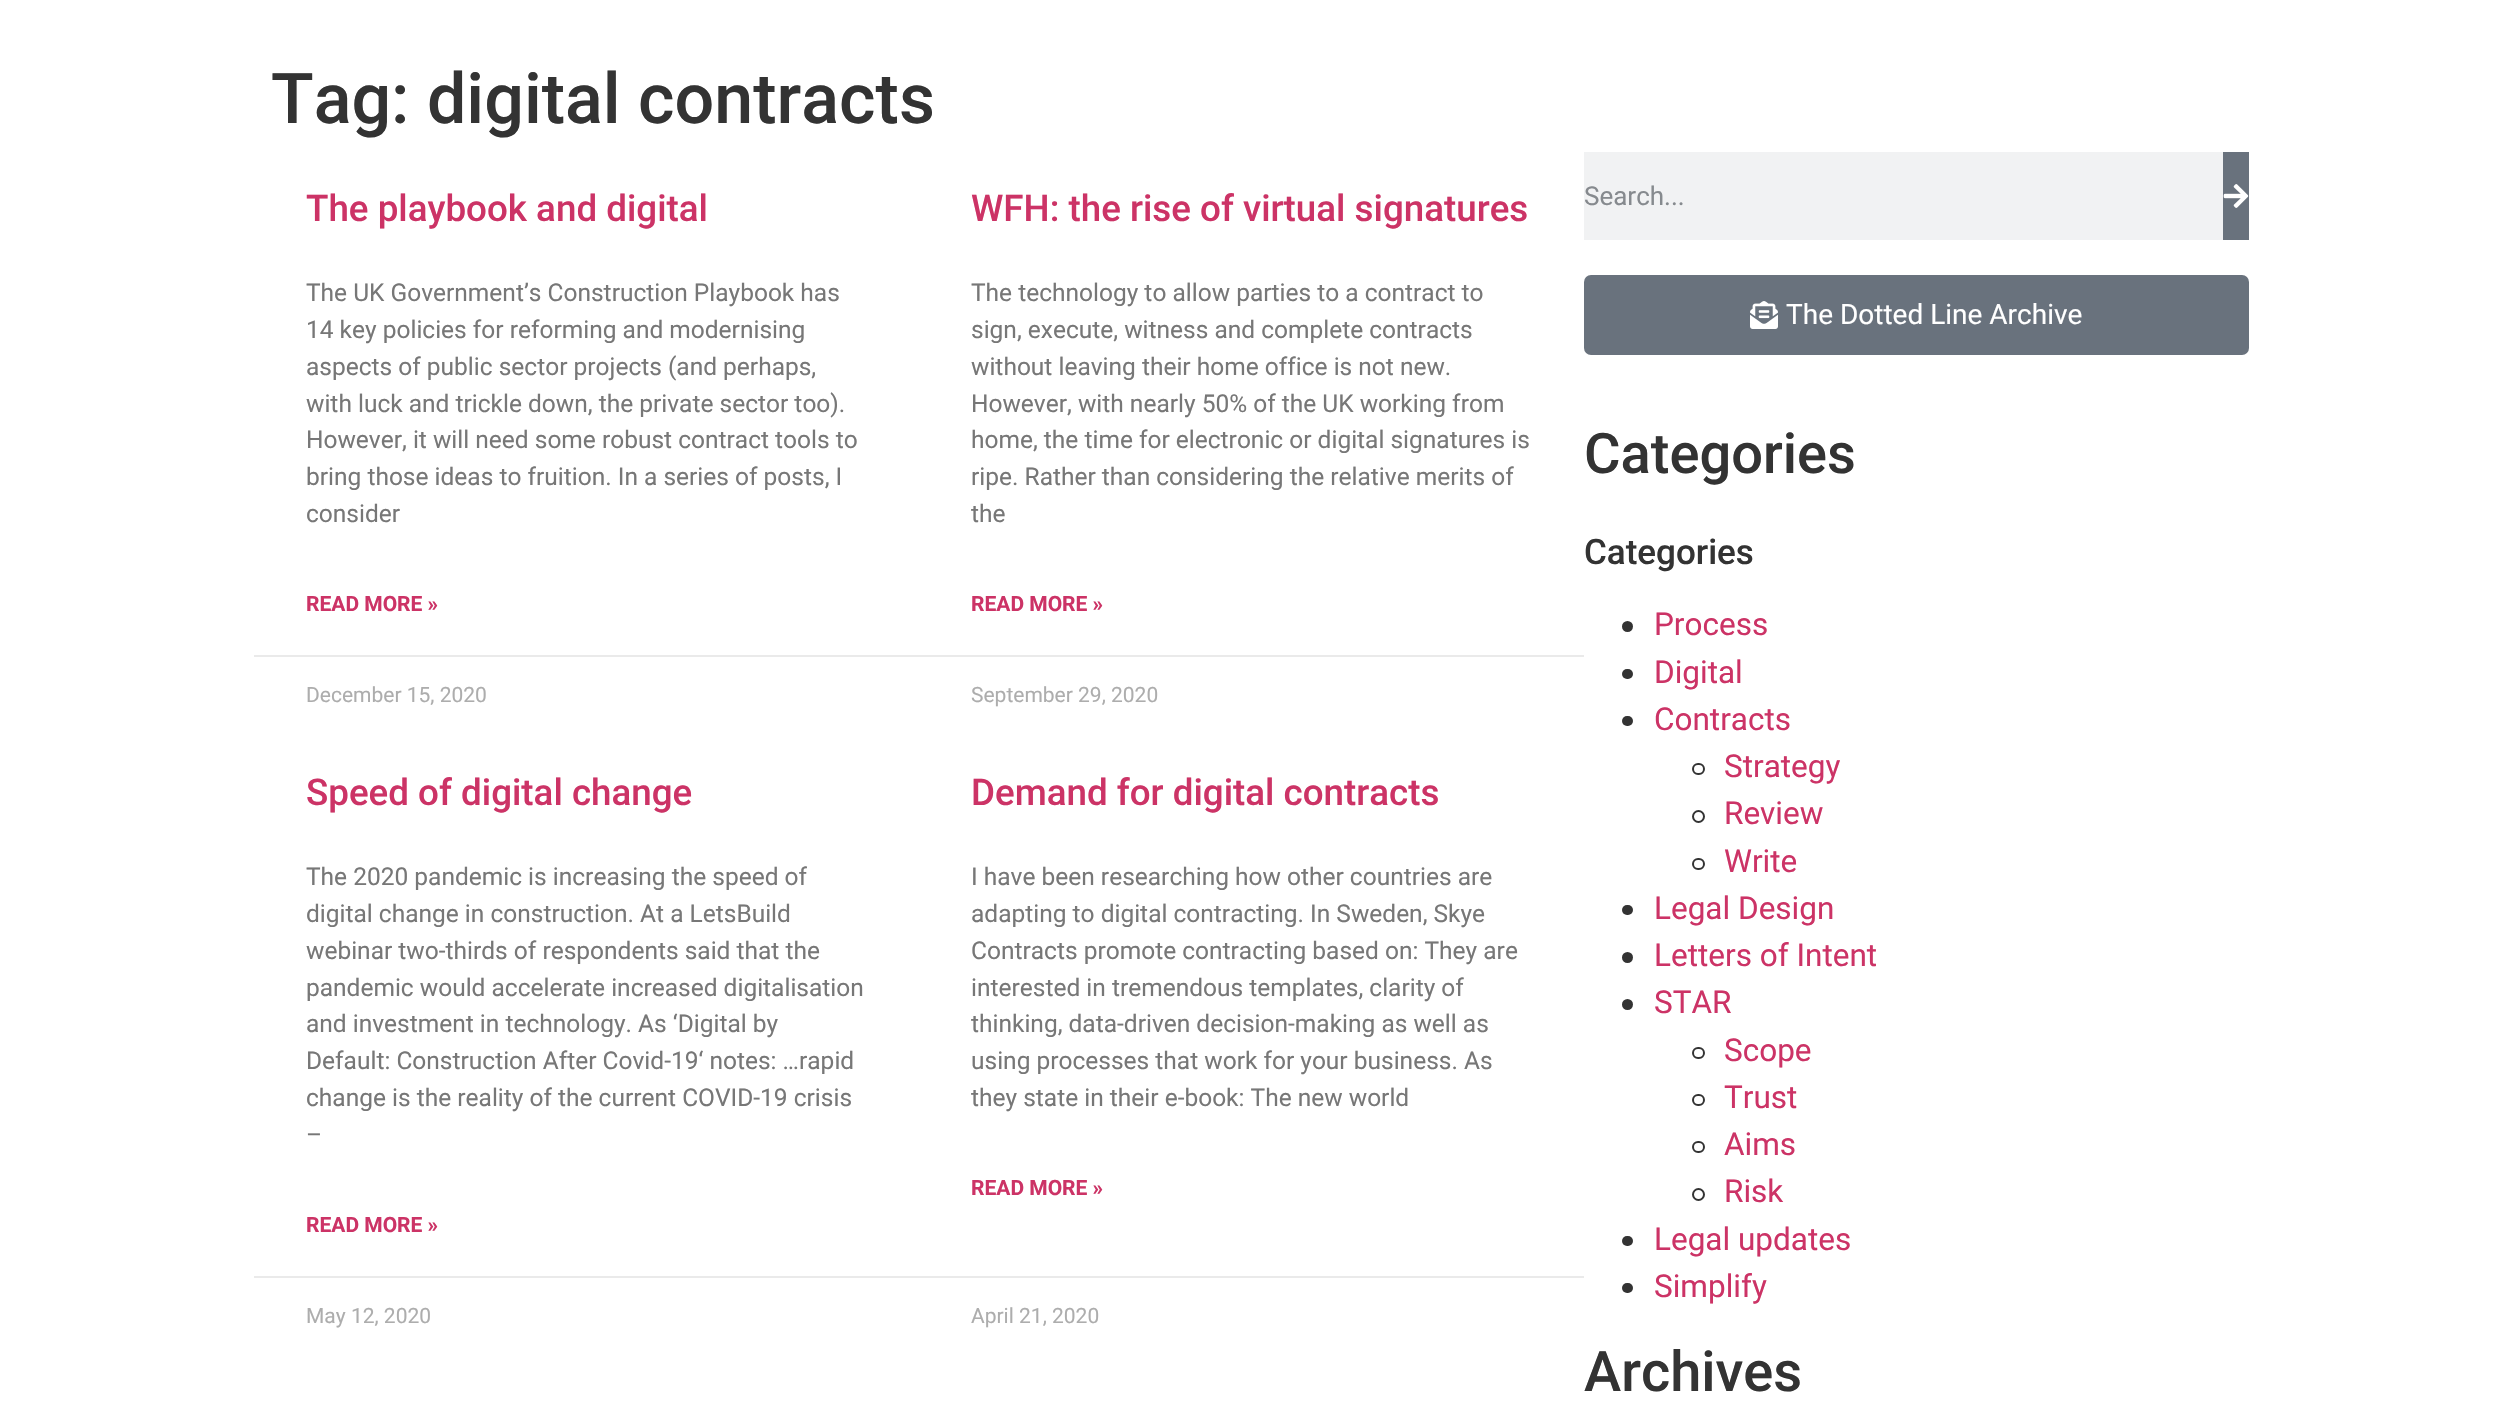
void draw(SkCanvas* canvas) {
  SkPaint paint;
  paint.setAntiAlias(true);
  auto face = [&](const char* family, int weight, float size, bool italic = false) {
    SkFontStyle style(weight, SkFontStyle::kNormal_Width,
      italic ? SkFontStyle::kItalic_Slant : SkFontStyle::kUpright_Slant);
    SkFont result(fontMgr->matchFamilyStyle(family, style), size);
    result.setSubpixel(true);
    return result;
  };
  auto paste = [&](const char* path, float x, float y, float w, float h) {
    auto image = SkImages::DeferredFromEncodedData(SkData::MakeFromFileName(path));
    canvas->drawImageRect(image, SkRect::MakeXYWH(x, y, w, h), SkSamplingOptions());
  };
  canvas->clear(0xffffffff);
  {
    const struct { float x, y, w, h; SkColor color; } items[] = {
      {254, 655, 1330, 2, 0xffeaeaea},
      {254, 1276, 1330, 2, 0xffeaeaea},
      {1584, 152, 639, 88, 0xfff1f2f3},
      {2223, 152, 26, 88, 0xff69727d},
    };
    for (auto [x, y, w, h, color] : items) {
      paint.setColor(color);
      canvas->drawRect(SkRect::MakeXYWH(x, y, w, h), paint);
    }
  }
  paste("img/1.png", 2223, 184, 26, 24);
  canvas->drawRoundRect(SkRect::MakeXYWH(1584, 275, 665, 80), 7, 7, paint);
  paste("img/2.png", 1750, 301, 28, 28);
  paint.setColor(0xff333333);
  canvas->drawCircle(1627.5f, 626.5f, 5.5f, paint);
  canvas->drawRoundRect(SkRect::MakeXYWH(1622, 669, 11, 10), 5, 5, paint);
  canvas->drawRoundRect(SkRect::MakeXYWH(1622, 716, 11, 10), 5, 5, paint);
  paint.setStroke(true);
  paint.setStrokeWidth(2);
  canvas->drawRoundRect(SkRect::MakeXYWH(1693, 764, 11, 10), 5, 5, paint);
  canvas->drawCircle(1698.5f, 816.5f, 5.5f, paint);
  canvas->drawRoundRect(SkRect::MakeXYWH(1693, 859, 11, 10), 5, 5, paint);
  paint.setStroke(false);
  canvas->drawRoundRect(SkRect::MakeXYWH(1622, 905, 11, 10), 5, 5, paint);
  canvas->drawCircle(1627.5f, 957.5f, 5.5f, paint);
  canvas->drawCircle(1627.5f, 1004.5f, 5.5f, paint);
  paint.setStroke(true);
  canvas->drawRoundRect(SkRect::MakeXYWH(1693, 1048, 11, 10), 5, 5, paint);
  canvas->drawRoundRect(SkRect::MakeXYWH(1693, 1095, 11, 10), 5, 5, paint);
  canvas->drawRoundRect(SkRect::MakeXYWH(1693, 1142, 11, 10), 5, 5, paint);
  canvas->drawCircle(1698.5f, 1194.5f, 5.5f, paint);
  paint.setStroke(false);
  canvas->drawRoundRect(SkRect::MakeXYWH(1622, 1236, 11, 10), 5, 5, paint);
  canvas->drawRoundRect(SkRect::MakeXYWH(1622, 1283, 11, 10), 5, 5, paint);
  auto f0 = face("Roboto", 500, 70);
  canvas->drawString("Tag: digital contracts", 271, 123, f0, paint);
  auto f1 = face("Roboto", 500, 36.75f);
  paint.setColor(0xffcc3366);
  canvas->drawString("The playbook and digital", 306, 221, f1, paint);
  auto f2 = face("Roboto", 400, 24.5f);
  paint.setColor(0xff777777);
  {
    const struct { const char* s; float x, y; } items[] = {
      {"The UK Government’s Construction Playbook has", 306, 301},
      {"14 key policies for reforming and modernising", 306, 338},
      {"aspects of public sector projects (and perhaps,", 306, 375},
      {"with luck and trickle down, the private sector too).", 306, 412},
      {"However, it will need some robust contract tools to", 306, 448},
      {"bring those ideas to fruition. In a series of posts, I", 306, 485},
      {"consider", 306, 522},
    };
    for (auto [s, x, y] : items) {
      canvas->drawString(s, x, y, f2, paint);
    }
  }
  auto f3 = face("Roboto", 700, 21);
  paint.setColor(0xffcc3366);
  canvas->drawString("READ MORE »", 306, 611, f3, paint);
  auto f4 = face("Roboto", 400, 21);
  paint.setColor(0xffadadad);
  canvas->drawString("December 15, 2020", 306, 702, f4, paint);
  paint.setColor(0xffcc3366);
  canvas->drawString("WFH: the rise of virtual signatures", 971, 221, f1, paint);
  paint.setColor(0xff777777);
  {
    const struct { const char* s; float x, y; } items[] = {
      {"The technology to allow parties to a contract to", 971, 301},
      {"sign, execute, witness and complete contracts", 971, 338},
      {"without leaving their home office is not new.", 971, 375},
      {"However, with nearly 50% of the UK working from", 971, 412},
      {"home, the time for electronic or digital signatures is", 971, 448},
      {"ripe. Rather than considering the relative merits of", 971, 485},
      {"the", 971, 522},
    };
    for (auto [s, x, y] : items) {
      canvas->drawString(s, x, y, f2, paint);
    }
  }
  paint.setColor(0xffcc3366);
  canvas->drawString("READ MORE »", 971, 611, f3, paint);
  paint.setColor(0xffadadad);
  canvas->drawString("September 29, 2020", 971, 702, f4, paint);
  paint.setColor(0xffcc3366);
  canvas->drawString("Speed of digital change", 306, 805, f1, paint);
  paint.setColor(0xff777777);
  {
    const struct { const char* s; float x, y; } items[] = {
      {"The 2020 pandemic is increasing the speed of", 306, 885},
      {"digital change in construction. At a LetsBuild", 306, 922},
      {"webinar two-thirds of respondents said that the", 306, 959},
      {"pandemic would accelerate increased digitalisation", 306, 996},
      {"and investment in technology. As ‘Digital by", 306, 1032},
      {"Default: Construction After Covid-19‘ notes: …rapid", 306, 1069},
      {"change is the reality of the current COVID-19 crisis", 306, 1106},
      {"–", 306, 1143},
    };
    for (auto [s, x, y] : items) {
      canvas->drawString(s, x, y, f2, paint);
    }
  }
  paint.setColor(0xffcc3366);
  canvas->drawString("READ MORE »", 306, 1232, f3, paint);
  paint.setColor(0xffadadad);
  canvas->drawString("May 12, 2020", 306, 1323, f4, paint);
  paint.setColor(0xffcc3366);
  canvas->drawString("Demand for digital contracts", 971, 805, f1, paint);
  paint.setColor(0xff777777);
  {
    const struct { const char* s; float x, y; } items[] = {
      {"I have been researching how other countries are", 971, 885},
      {"adapting to digital contracting. In Sweden, Skye", 971, 922},
      {"Contracts promote contracting based on: They are", 971, 959},
      {"interested in tremendous templates, clarity of", 971, 996},
      {"thinking, data-driven decision-making as well as", 971, 1032},
      {"using processes that work for your business. As", 971, 1069},
      {"they state in their e-book: The new world", 971, 1106},
    };
    for (auto [s, x, y] : items) {
      canvas->drawString(s, x, y, f2, paint);
    }
  }
  paint.setColor(0xffcc3366);
  canvas->drawString("READ MORE »", 971, 1195, f3, paint);
  paint.setColor(0xffadadad);
  canvas->drawString("April 21, 2020", 971, 1323, f4, paint);
  auto f5 = face("Roboto", 400, 26);
  paint.setColor(0xff868a8e);
  canvas->drawString("Search...", 1584, 205, f5, paint);
  auto f6 = face("Roboto", 400, 28);
  paint.setColor(0xffffffff);
  canvas->drawString("The Dotted Line Archive", 1786, 324, f6, paint);
  auto f7 = face("Roboto", 500, 56);
  paint.setColor(0xff333333);
  canvas->drawString("Categories", 1584, 473, f7, paint);
  auto f8 = face("Roboto", 500, 35);
  canvas->drawString("Categories", 1584, 564, f8, paint);
  auto f9 = face("Roboto", 400, 31.5f);
  paint.setColor(0xffcc3366);
  {
    const struct { const char* s; float x, y; } items[] = {
      {"Process", 1654, 635},
      {"Digital", 1654, 683},
      {"Contracts", 1654, 730},
      {"Strategy", 1724, 777},
      {"Review", 1724, 824},
      {"Write", 1724, 872},
      {"Legal Design", 1654, 919},
      {"Letters of Intent", 1654, 966},
      {"STAR", 1654, 1013},
      {"Scope", 1724, 1061},
      {"Trust", 1724, 1108},
      {"Aims", 1724, 1155},
      {"Risk", 1724, 1202},
      {"Legal updates", 1654, 1250},
      {"Simplify", 1654, 1297},
    };
    for (auto [s, x, y] : items) {
      canvas->drawString(s, x, y, f9, paint);
    }
  }
  paint.setColor(0xff333333);
  canvas->drawString("Archives", 1584, 1391, f7, paint);
}
